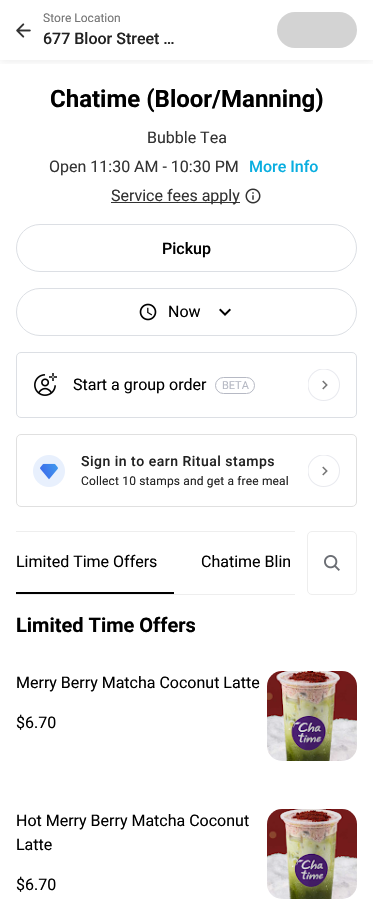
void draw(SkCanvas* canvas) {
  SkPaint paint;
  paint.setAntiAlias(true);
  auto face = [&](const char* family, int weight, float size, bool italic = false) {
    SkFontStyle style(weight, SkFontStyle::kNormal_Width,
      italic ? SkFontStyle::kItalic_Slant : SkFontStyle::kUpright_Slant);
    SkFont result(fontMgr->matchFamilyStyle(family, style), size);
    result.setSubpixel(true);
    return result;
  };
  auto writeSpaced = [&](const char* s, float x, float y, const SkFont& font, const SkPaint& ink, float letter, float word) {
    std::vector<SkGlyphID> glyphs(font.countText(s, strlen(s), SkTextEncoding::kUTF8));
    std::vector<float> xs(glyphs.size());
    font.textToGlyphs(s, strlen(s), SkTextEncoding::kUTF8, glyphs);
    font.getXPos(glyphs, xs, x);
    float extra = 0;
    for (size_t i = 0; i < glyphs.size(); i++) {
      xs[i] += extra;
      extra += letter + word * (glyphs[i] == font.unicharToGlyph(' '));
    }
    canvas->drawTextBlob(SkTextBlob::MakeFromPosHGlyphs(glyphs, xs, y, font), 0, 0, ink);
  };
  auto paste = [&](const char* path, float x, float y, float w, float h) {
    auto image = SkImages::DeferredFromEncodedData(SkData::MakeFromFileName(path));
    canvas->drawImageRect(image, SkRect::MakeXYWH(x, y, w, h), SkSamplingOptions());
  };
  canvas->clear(0xffffffff);
  canvas->save();
  canvas->clipRect(SkRect::MakeXYWH(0, 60, 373, 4));
  paint.setColor(0x14000000);
  paint.setMaskFilter(SkMaskFilter::MakeBlur(kNormal_SkBlurStyle, 4));
  canvas->drawRect(SkRect::MakeXYWH(0, 1, 373, 60), paint);
  paint.setMaskFilter(nullptr);
  canvas->restore();
  paste("img/1.png", 16, 23, 15, 15);
  paint.setColor(0xffd3d3d3);
  canvas->drawRoundRect(SkRect::MakeXYWH(277, 12, 80, 36), 18, 18, paint);
  paint.setColor(0xff333333);
  canvas->drawRect(SkRect::MakeXYWH(111, 202, 129, 1), paint);
  paste("img/2.png", 245, 188, 16, 16);
  paint.setStroke(true);
  paint.setStrokeWidth(1);
  paint.setColor(0xffdcdfe4);
  canvas->drawRoundRect(SkRect::MakeXYWH(16.5f, 224.5f, 340, 47), 23.5f, 23.5f, paint);
  canvas->drawRoundRect(SkRect::MakeXYWH(16.5f, 288.5f, 340, 47), 23.5f, 23.5f, paint);
  paste("img/3.png", 139, 303, 18, 18);
  paste("img/4.png", 219, 308, 12, 8);
  canvas->drawRoundRect(SkRect::MakeXYWH(16.5f, 352.5f, 340, 65), 4.5f, 4.5f, paint);
  paste("img/5.png", 34, 373, 23, 23);
  paint.setColor(0xffb6b9c4);
  canvas->drawRoundRect(SkRect::MakeXYWH(215.5f, 377.5f, 39, 16), 8, 8, paint);
  paste("img/6.png", 308, 369, 32, 32);
  paint.setColor(0xffe0e0e0);
  canvas->drawRoundRect(SkRect::MakeXYWH(16.5f, 434.5f, 340, 72), 4.5f, 4.5f, paint);
  paste("img/7.png", 33, 455, 32, 32);
  paste("img/6.png", 308, 455, 32, 32);
  paint.setStroke(false);
  {
    const struct { float x, y, w, h; SkColor color; } items[] = {
      {16, 531, 279, 1, 0xffeeeeee},
      {16, 594, 279, 1, 0xffeeeeee},
      {16, 592, 158, 2, 0xff000000},
    };
    for (auto [x, y, w, h, color] : items) {
      paint.setColor(color);
      canvas->drawRect(SkRect::MakeXYWH(x, y, w, h), paint);
    }
  }
  paint.setStroke(true);
  paint.setColor(0xffeeeeee);
  canvas->drawRoundRect(SkRect::MakeXYWH(307.5f, 531.5f, 49, 63), 4.5f, 4.5f, paint);
  paste("img/8.png", 324, 555, 16, 16);
  paste("img/9.png", 267, 671, 90, 90);
  paste("img/10.png", 267, 809, 90, 90);
  auto f0 = face("Roboto", 400, 12);
  paint.setStroke(false);
  paint.setColor(0xff757575);
  canvas->drawString("Store Location", 43, 22, f0, paint);
  auto f1 = face("Roboto", 500, 16);
  paint.setColor(0xff222222);
  canvas->drawString("677 Bloor Street …", 43, 44, f1, paint);
  auto f2 = face("Roboto", 700, 24);
  paint.setColor(0xff000000);
  canvas->drawString("Chatime (Bloor/Manning)", 50, 107, f2, paint);
  auto f3 = face("Roboto", 400, 16);
  paint.setColor(0xff333333);
  canvas->drawString("Bubble Tea", 147, 143, f3, paint);
  canvas->drawString("Open 11:30 AM - 10:30 PM", 49, 172, f3, paint);
  paint.setColor(0xff09aee0);
  canvas->drawString("More Info", 249, 172, f1, paint);
  paint.setColor(0xff333333);
  canvas->drawString("Service fees apply", 111, 201, f3, paint);
  paint.setColor(0xff000000);
  canvas->drawString("Pickup", 162, 254, f1, paint);
  canvas->drawString("Now", 168, 317, f3, paint);
  canvas->drawString("Start a group order", 73, 390, f3, paint);
  auto f4 = face("Roboto", 400, 11);
  paint.setColor(0xffb6b9c4);
  canvas->drawString("BETA", 222, 389, f4, paint);
  auto f5 = face("Roboto", 500, 14);
  paint.setColor(0xff222222);
  writeSpaced("Sign in to earn Ritual stamps", 81, 466, f5, paint, 0.5f, 0);
  writeSpaced("Collect 10 stamps and get a free meal", 81, 485, f0, paint, 0.15f, 0);
  paint.setColor(0xff000000);
  canvas->drawString("Limited Time Offers", 16, 567, f3, paint);
  canvas->drawString("Chatime Blin", 201, 567, f3, paint);
  auto f6 = face("Roboto", 700, 20);
  canvas->drawString("Limited Time Offers", 16, 632, f6, paint);
  {
    const struct { const char* s; float x, y; } items[] = {
      {"Merry Berry Matcha Coconut Latte", 16, 688},
      {"$6.70", 16, 728},
      {"Hot Merry Berry Matcha Coconut", 16, 826},
      {"Latte", 16, 850},
      {"$6.70", 16, 890},
    };
    for (auto [s, x, y] : items) {
      canvas->drawString(s, x, y, f3, paint);
    }
  }
}
